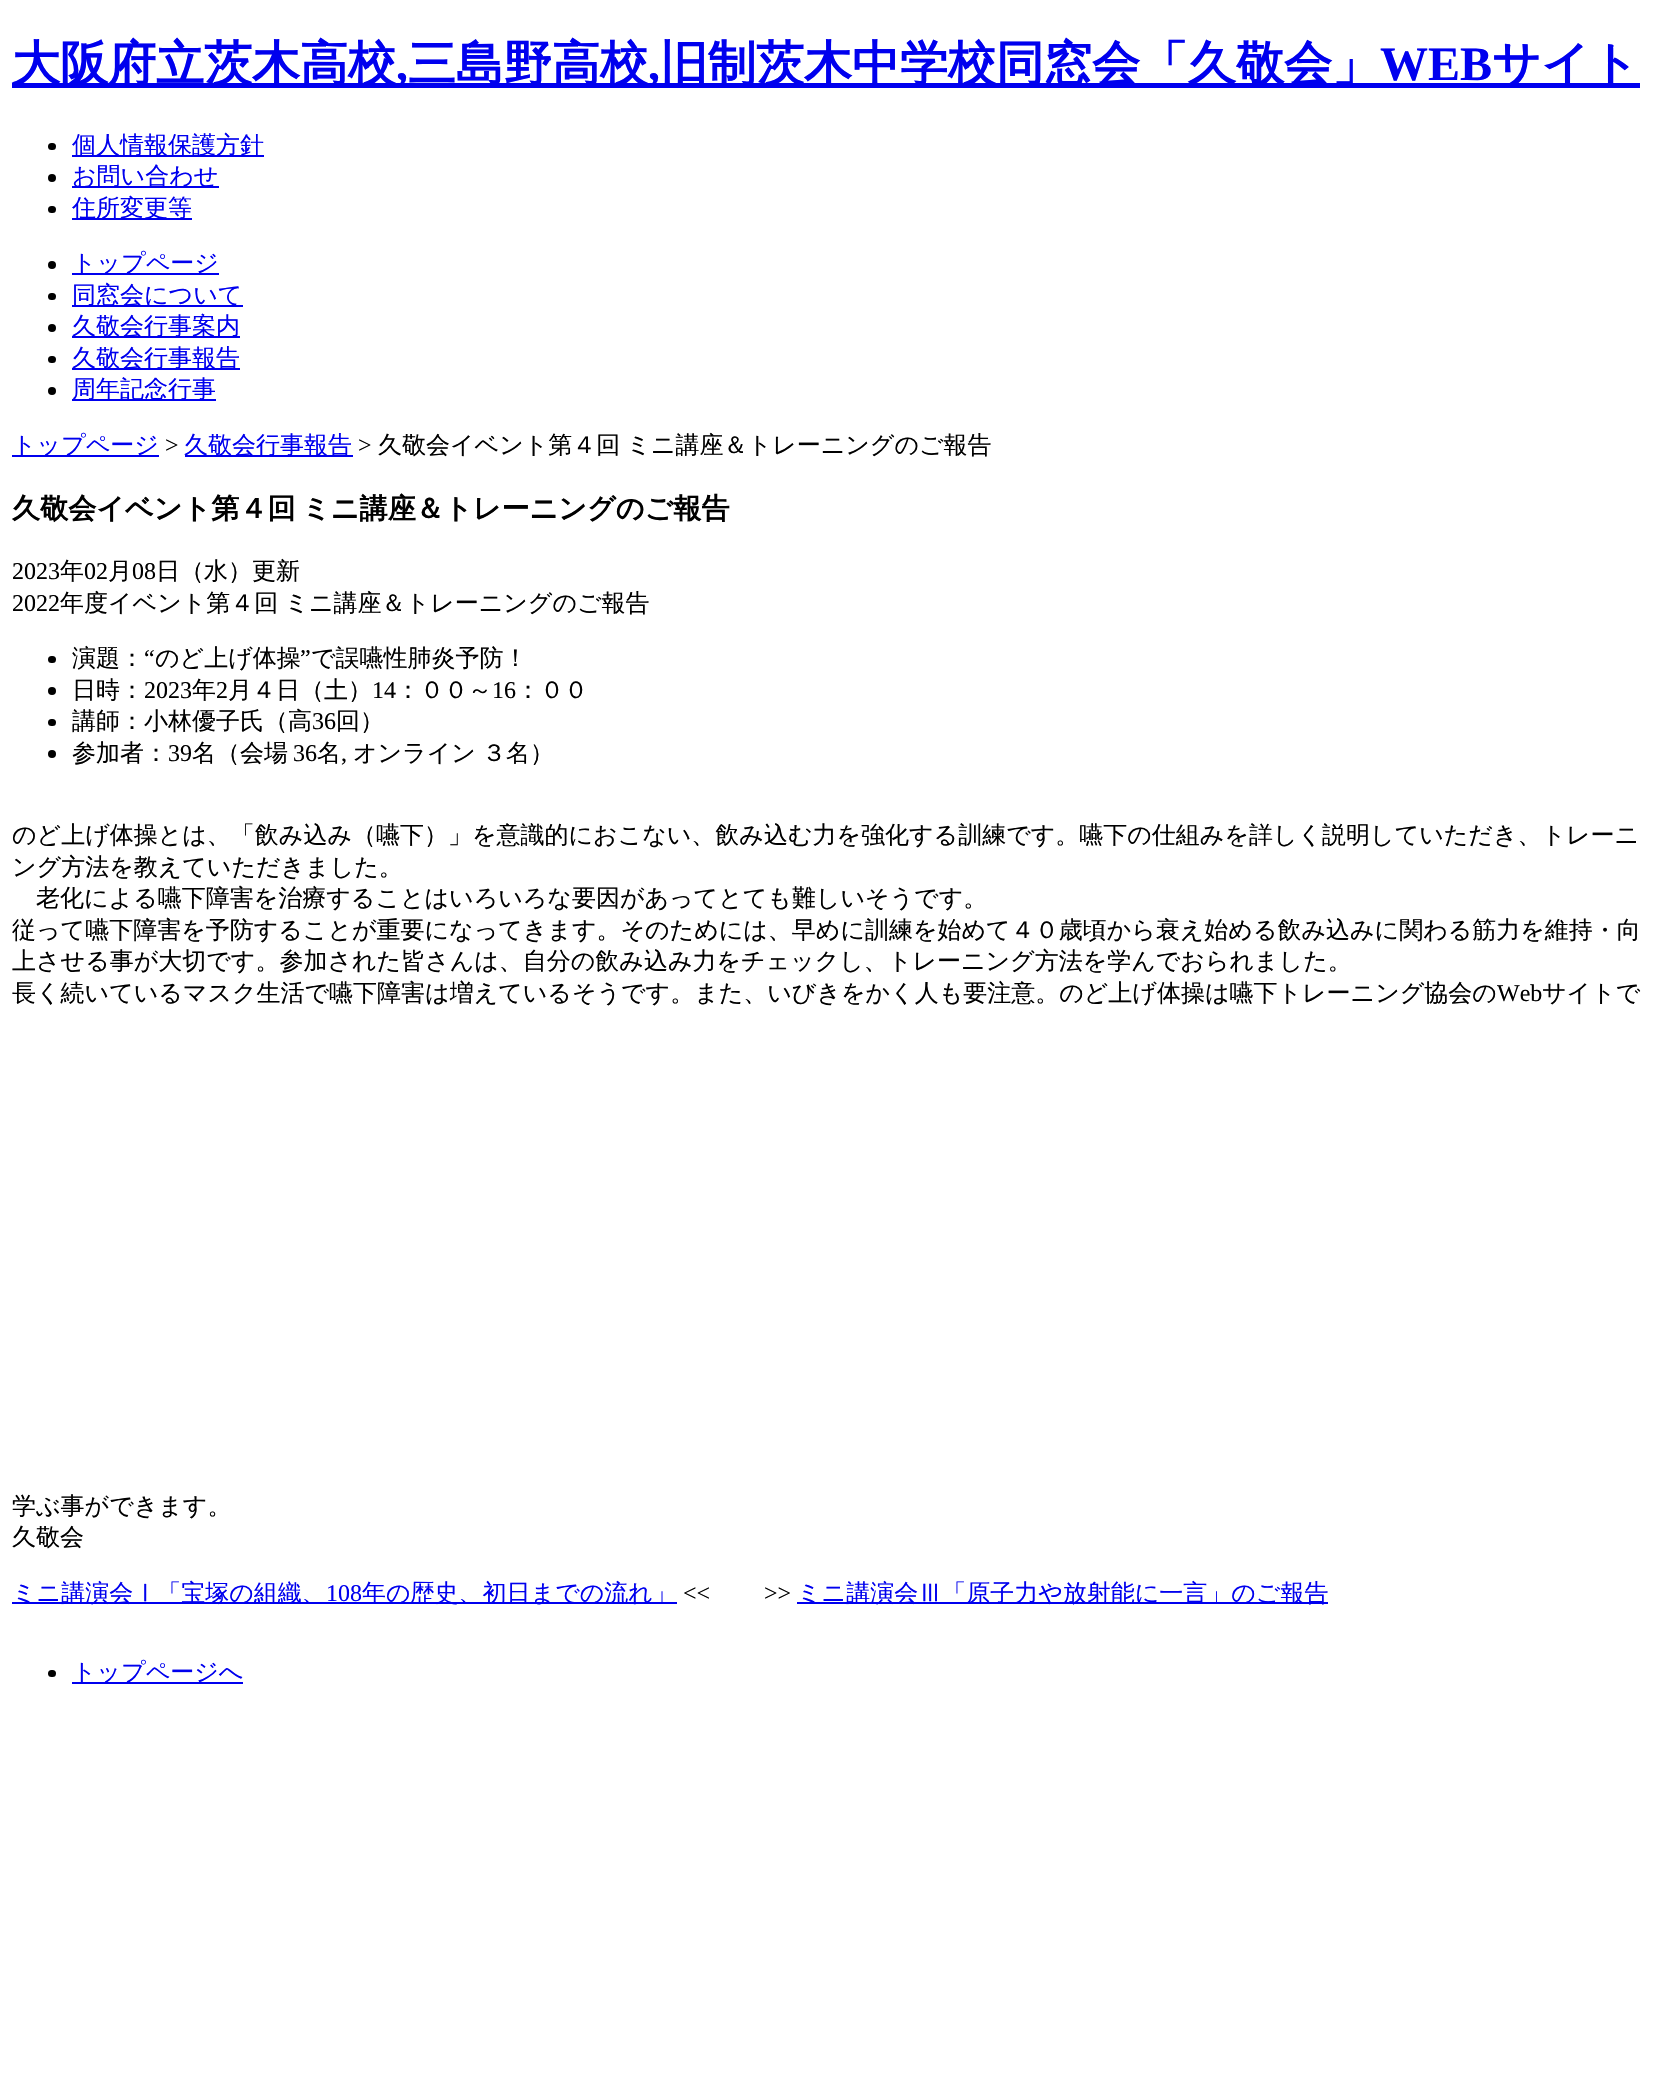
void draw(SkCanvas* canvas) {
  SkPaint paint;
  paint.setAntiAlias(true);
  auto face = [&](const char* family, int weight, float size, bool italic = false) {
    SkFontStyle style(weight, SkFontStyle::kNormal_Width,
      italic ? SkFontStyle::kItalic_Slant : SkFontStyle::kUpright_Slant);
    SkFont result(fontMgr->matchFamilyStyle(family, style), size);
    result.setSubpixel(true);
    return result;
  };
  auto writeSpaced = [&](const char* s, float x, float y, const SkFont& font, const SkPaint& ink, float letter, float word) {
    std::vector<SkGlyphID> glyphs(font.countText(s, strlen(s), SkTextEncoding::kUTF8));
    std::vector<float> xs(glyphs.size());
    font.textToGlyphs(s, strlen(s), SkTextEncoding::kUTF8, glyphs);
    font.getXPos(glyphs, xs, x);
    float extra = 0;
    for (size_t i = 0; i < glyphs.size(); i++) {
      xs[i] += extra;
      extra += letter + word * (glyphs[i] == font.unicharToGlyph(' '));
    }
    canvas->drawTextBlob(SkTextBlob::MakeFromPosHGlyphs(glyphs, xs, y, font), 0, 0, ink);
  };
  canvas->clear(0xffffffff);
  paint.setColor(0xff0000ee);
  canvas->drawRect(SkRect::MakeXYWH(12, 83, 1628, 5), paint);
  paint.setColor(0xff000000);
  canvas->drawRoundRect(SkRect::MakeXYWH(48, 143, 8, 7), 3.5f, 3.5f, paint);
  paint.setColor(0xff0000ee);
  canvas->drawRect(SkRect::MakeXYWH(72, 155, 192, 2), paint);
  paint.setColor(0xff000000);
  canvas->drawCircle(52, 178, 4, paint);
  paint.setColor(0xff0000ee);
  canvas->drawRect(SkRect::MakeXYWH(72, 186, 147, 2), paint);
  paint.setColor(0xff000000);
  canvas->drawRoundRect(SkRect::MakeXYWH(48, 206, 8, 7), 3.5f, 3.5f, paint);
  paint.setColor(0xff0000ee);
  canvas->drawRect(SkRect::MakeXYWH(72, 218, 120, 2), paint);
  paint.setColor(0xff000000);
  canvas->drawCircle(52, 265, 4, paint);
  paint.setColor(0xff0000ee);
  canvas->drawRect(SkRect::MakeXYWH(72, 273, 147, 2), paint);
  paint.setColor(0xff000000);
  canvas->drawRoundRect(SkRect::MakeXYWH(48, 293, 8, 7), 3.5f, 3.5f, paint);
  paint.setColor(0xff0000ee);
  canvas->drawRect(SkRect::MakeXYWH(72, 305, 171, 2), paint);
  paint.setColor(0xff000000);
  canvas->drawCircle(52, 328, 4, paint);
  paint.setColor(0xff0000ee);
  canvas->drawRect(SkRect::MakeXYWH(72, 336, 168, 2), paint);
  paint.setColor(0xff000000);
  canvas->drawRoundRect(SkRect::MakeXYWH(48, 356, 8, 7), 3.5f, 3.5f, paint);
  paint.setColor(0xff0000ee);
  canvas->drawRect(SkRect::MakeXYWH(72, 368, 168, 2), paint);
  paint.setColor(0xff000000);
  canvas->drawCircle(52, 391, 4, paint);
  {
    const struct { float x, y, w, h; SkColor color; } items[] = {
      {72, 399, 144, 2, 0xff0000ee},
      {12, 455, 147, 2, 0xff0000ee},
      {185, 455, 168, 2, 0xff0000ee},
    };
    for (auto [x, y, w, h, color] : items) {
      paint.setColor(color);
      canvas->drawRect(SkRect::MakeXYWH(x, y, w, h), paint);
    }
  }
  paint.setColor(0xff000000);
  canvas->drawRoundRect(SkRect::MakeXYWH(48, 656, 8, 7), 3.5f, 3.5f, paint);
  canvas->drawCircle(52, 691, 4, paint);
  canvas->drawRoundRect(SkRect::MakeXYWH(48, 719, 8, 7), 3.5f, 3.5f, paint);
  canvas->drawCircle(52, 754, 4, paint);
  paint.setColor(0xff0000ee);
  canvas->drawRect(SkRect::MakeXYWH(12, 1602, 665, 2), paint);
  canvas->drawRect(SkRect::MakeXYWH(797, 1602, 531, 2), paint);
  paint.setColor(0xff000000);
  canvas->drawRoundRect(SkRect::MakeXYWH(48, 1670, 8, 7), 3.5f, 3.5f, paint);
  paint.setColor(0xff0000ee);
  canvas->drawRect(SkRect::MakeXYWH(72, 1682, 171, 2), paint);
  auto f0 = face("WenQuanYi Zen Hei", 700, 48);
  canvas->drawString("大阪府立茨木高校", 12, 80, f0, paint);
  auto f1 = face("Liberation Serif", 700, 48);
  canvas->drawString(",", 396, 80, f1, paint);
  canvas->drawString("三島野高校", 408, 80, f0, paint);
  canvas->drawString(",", 648, 80, f1, paint);
  canvas->drawString("旧制茨木中学校同窓会「久敬会」", 660, 80, f0, paint);
  canvas->drawString("WEB", 1380, 80, f1, paint);
  canvas->drawString("サイト", 1492, 80, f0, paint);
  auto f2 = face("WenQuanYi Zen Hei", 500, 24);
  {
    const struct { const char* s; float x, y; } items[] = {
      {"個人情報保護方針", 72, 153},
      {"お問い合わせ", 72, 184},
      {"住所変更等", 72, 216},
      {"トップページ", 72, 271},
      {"同窓会について", 72, 303},
      {"久敬会行事案内", 72, 334},
      {"久敬会行事報告", 72, 366},
      {"周年記念行事", 72, 397},
      {"トップページ", 12, 453},
    };
    for (auto [s, x, y] : items) {
      canvas->drawString(s, x, y, f2, paint);
    }
  }
  auto f3 = face("Liberation Serif", 400, 24);
  paint.setColor(0xff000000);
  canvas->drawString(">", 165, 453, f3, paint);
  paint.setColor(0xff0000ee);
  canvas->drawString("久敬会行事報告", 184, 453, f2, paint);
  paint.setColor(0xff000000);
  canvas->drawString(">", 358, 453, f3, paint);
  writeSpaced("久敬会イベント第４回 ミニ講座＆トレーニングのご報告", 378, 453, f2, paint, 0, -1);
  auto f4 = face("WenQuanYi Zen Hei", 700, 28.1f);
  writeSpaced("久敬会イベント第４回 ミニ講座＆トレーニングのご報告", 12, 518, f4, paint, 0, -2);
  canvas->drawString("2023", 12, 579, f3, paint);
  canvas->drawString("年", 60, 579, f2, paint);
  canvas->drawString("02", 84, 579, f3, paint);
  canvas->drawString("月", 108, 579, f2, paint);
  canvas->drawString("08", 132, 579, f3, paint);
  canvas->drawString("日（水）更新", 156, 579, f2, paint);
  canvas->drawString("2022", 12, 611, f3, paint);
  writeSpaced("年度イベント第４回 ミニ講座＆トレーニングのご報告", 60, 611, f2, paint, 0, -1);
  canvas->drawString("演題：", 72, 666, f2, paint);
  canvas->drawString("“", 144, 666, f3, paint);
  canvas->drawString("のど上げ体操", 155, 666, f2, paint);
  canvas->drawString("”", 300, 666, f3, paint);
  canvas->drawString("で誤嚥性肺炎予防！", 311, 666, f2, paint);
  canvas->drawString("日時：", 72, 698, f2, paint);
  canvas->drawString("2023", 144, 698, f3, paint);
  canvas->drawString("年", 192, 698, f2, paint);
  canvas->drawString("2", 216, 698, f3, paint);
  canvas->drawString("月４日（土）", 228, 698, f2, paint);
  canvas->drawString("14", 372, 698, f3, paint);
  canvas->drawString("：００～", 396, 698, f2, paint);
  canvas->drawString("16", 492, 698, f3, paint);
  canvas->drawString("：００", 516, 698, f2, paint);
  canvas->drawString("講師：小林優子氏（高", 72, 729, f2, paint);
  canvas->drawString("36", 312, 729, f3, paint);
  canvas->drawString("回）", 336, 729, f2, paint);
  canvas->drawString("参加者：", 72, 761, f2, paint);
  canvas->drawString("39", 168, 761, f3, paint);
  canvas->drawString("名（会場", 192, 761, f2, paint);
  canvas->drawString("36", 293, 761, f3, paint);
  canvas->drawString("名", 317, 761, f2, paint);
  writeSpaced("オンライン ３名）", 353, 761, f2, paint, 0, -1);
  canvas->drawString(",", 341, 761, f3, paint);
  {
    const struct { const char* s; float x, y; } items[] = {
      {"のど上げ体操とは、「飲み込み（嚥下）」を意識的におこない、飲み込む力を強化する訓練です。嚥下の仕組みを詳しく説明していただき、トレーニ", 12, 843},
      {"ング方法を教えていただきました。", 12, 875},
      {"老化による嚥下障害を治療することはいろいろな要因があってとても難しいそうです。", 36, 906},
      {"従って嚥下障害を予防することが重要になってきます。そのためには、早めに訓練を始めて４０歳頃から衰え始める飲み込みに関わる筋力を維持・向", 12, 938},
      {"上させる事が大切です。参加された皆さんは、自分の飲み込み力をチェックし、トレーニング方法を学んでおられました。", 12, 969},
      {"長く続いているマスク生活で嚥下障害は増えているそうです。また、いびきをかく人も要注意。のど上げ体操は嚥下トレーニング協会の", 12, 1001},
    };
    for (auto [s, x, y] : items) {
      canvas->drawString(s, x, y, f2, paint);
    }
  }
  canvas->drawString("Web", 1497, 1001, f3, paint);
  {
    const struct { const char* s; float x, y; } items[] = {
      {"サイトで", 1542, 1001},
      {"学ぶ事ができます。", 12, 1514},
      {"久敬会", 12, 1545},
    };
    for (auto [s, x, y] : items) {
      canvas->drawString(s, x, y, f2, paint);
    }
  }
  paint.setColor(0xff0000ee);
  canvas->drawString("ミニ講演会Ⅰ「宝塚の組織、", 12, 1601, f2, paint);
  canvas->drawString("108", 326, 1601, f3, paint);
  canvas->drawString("年の歴史、初日までの流れ」", 362, 1601, f2, paint);
  paint.setColor(0xff000000);
  canvas->drawString("<<", 683, 1601, f3, paint);
  canvas->drawString(">>", 764, 1601, f3, paint);
  paint.setColor(0xff0000ee);
  canvas->drawString("ミニ講演会Ⅲ「原子力や放射能に一言」のご報告", 797, 1601, f2, paint);
  canvas->drawString("トップページへ", 72, 1680, f2, paint);
}
